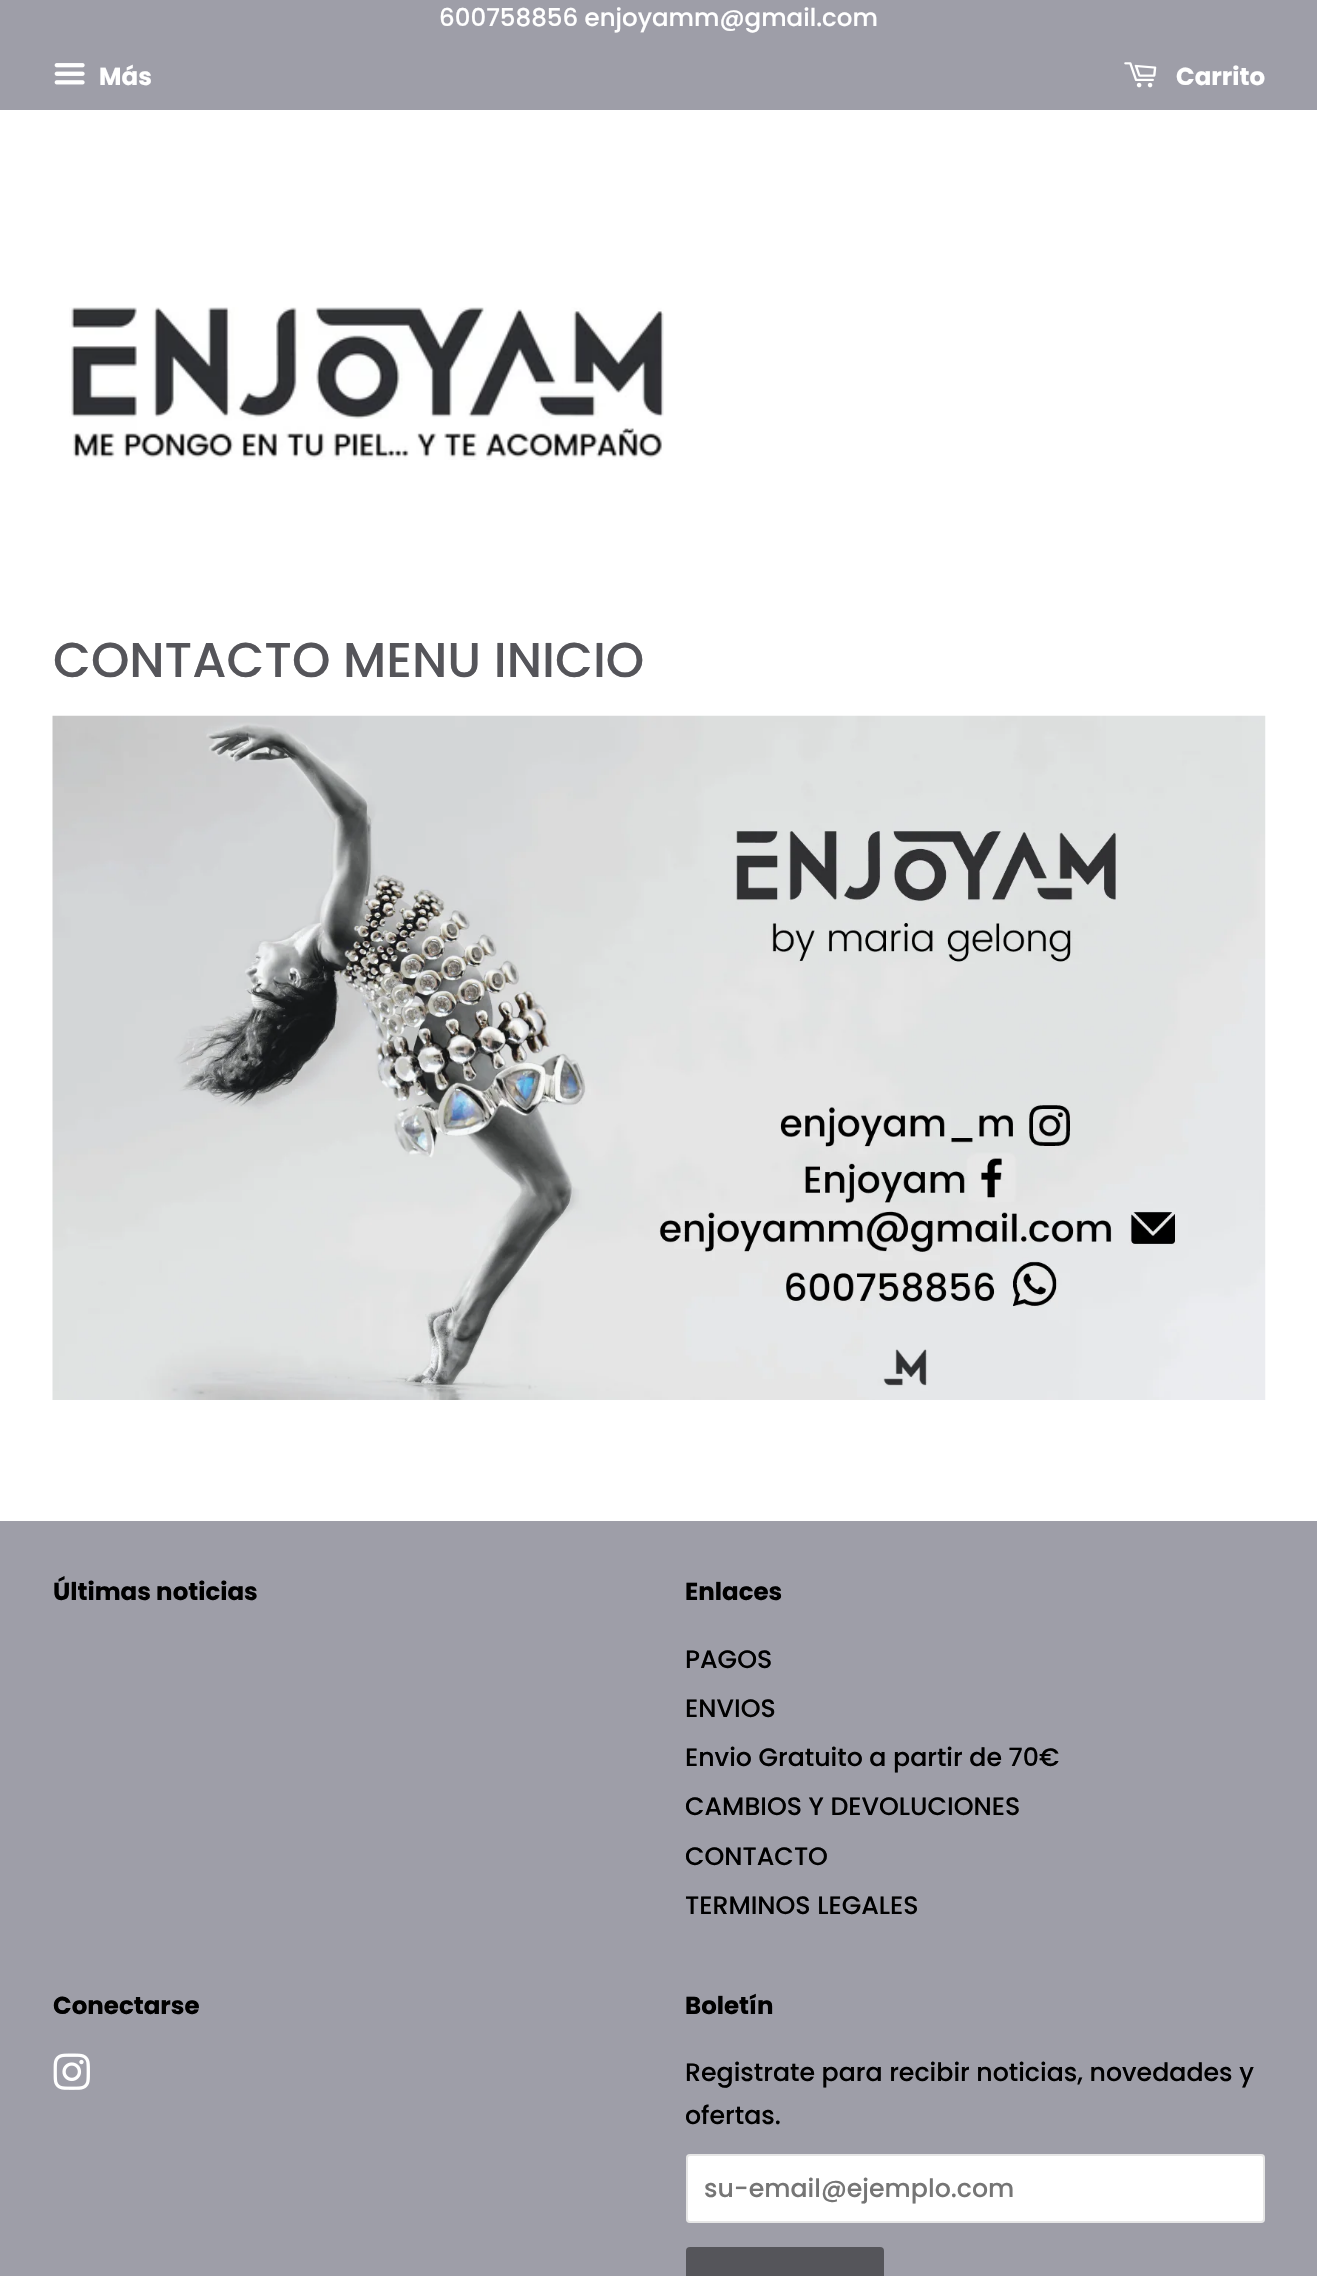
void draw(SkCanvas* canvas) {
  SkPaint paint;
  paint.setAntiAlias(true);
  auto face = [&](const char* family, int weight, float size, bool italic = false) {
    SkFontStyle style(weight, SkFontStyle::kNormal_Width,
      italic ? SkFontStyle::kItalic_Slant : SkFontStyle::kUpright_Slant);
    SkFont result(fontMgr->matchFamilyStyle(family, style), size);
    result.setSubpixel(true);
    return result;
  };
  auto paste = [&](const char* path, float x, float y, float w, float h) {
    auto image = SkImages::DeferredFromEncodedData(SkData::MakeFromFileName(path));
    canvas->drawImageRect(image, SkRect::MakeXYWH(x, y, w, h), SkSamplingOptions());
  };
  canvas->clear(0xffffffff);
  paint.setColor(0xff9e9ea8);
  canvas->drawRect(SkRect::MakeXYWH(0, 0, 1317, 110), paint);
  paste("img/1.png", 54, 63, 31, 22);
  paste("img/2.png", 1124, 62, 33, 26);
  paste("img/3.png", 69, 307, 595, 153);
  paste("img/4.png", 52, 715, 1214, 685);
  canvas->drawRect(SkRect::MakeXYWH(0, 1521, 1317, 755), paint);
  paste("img/5.png", 53, 2053, 37, 37);
  paint.setColor(0xffffffff);
  canvas->drawRoundRect(SkRect::MakeXYWH(686, 2154, 579, 69), 4, 4, paint);
  paint.setStroke(true);
  paint.setStrokeWidth(2);
  paint.setColor(0x2655555a);
  canvas->drawRoundRect(SkRect::MakeXYWH(687, 2155, 577, 67), 3, 3, paint);
  paint.setStroke(false);
  paint.setColor(0xff55555a);
  canvas->drawRoundRect(SkRect::MakeXYWH(686, 2247, 198, 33), 4, 4, paint);
  auto f0 = face("Poppins", 500, 24.5f);
  paint.setColor(0xffffffff);
  canvas->drawString("600758856 enjoyamm@gmail.com", 439, 26, f0, paint);
  auto f1 = face("Poppins", 700, 24.5f);
  canvas->drawString("Más", 99, 85, f1, paint);
  canvas->drawString("Carrito", 1176, 85, f1, paint);
  auto f2 = face("Poppins", 500, 49);
  paint.setColor(0xff55555a);
  canvas->drawString("CONTACTO MENU INICIO", 53, 677, f2, paint);
  paint.setColor(0xff000000);
  canvas->drawString("Últimas noticias", 53, 1600, f1, paint);
  canvas->drawString("Enlaces", 685, 1600, f1, paint);
  auto f3 = face("Poppins", 500, 25.25f);
  {
    const struct { const char* s; float x, y; } items[] = {
      {"PAGOS", 685, 1668},
      {"ENVIOS", 685, 1717},
      {"Envio Gratuito a partir de 70€", 685, 1766},
      {"CAMBIOS Y DEVOLUCIONES", 685, 1815},
      {"CONTACTO", 685, 1865},
      {"TERMINOS LEGALES", 685, 1914},
    };
    for (auto [s, x, y] : items) {
      canvas->drawString(s, x, y, f3, paint);
    }
  }
  canvas->drawString("Conectarse", 53, 2014, f1, paint);
  canvas->drawString("Boletín", 685, 2014, f1, paint);
  canvas->drawString("Registrate para recibir noticias, novedades y", 685, 2081, f3, paint);
  canvas->drawString("ofertas.", 685, 2124, f3, paint);
  paint.setColor(0xff757575);
  canvas->drawString("su-email@ejemplo.com", 704, 2197, f3, paint);
}
